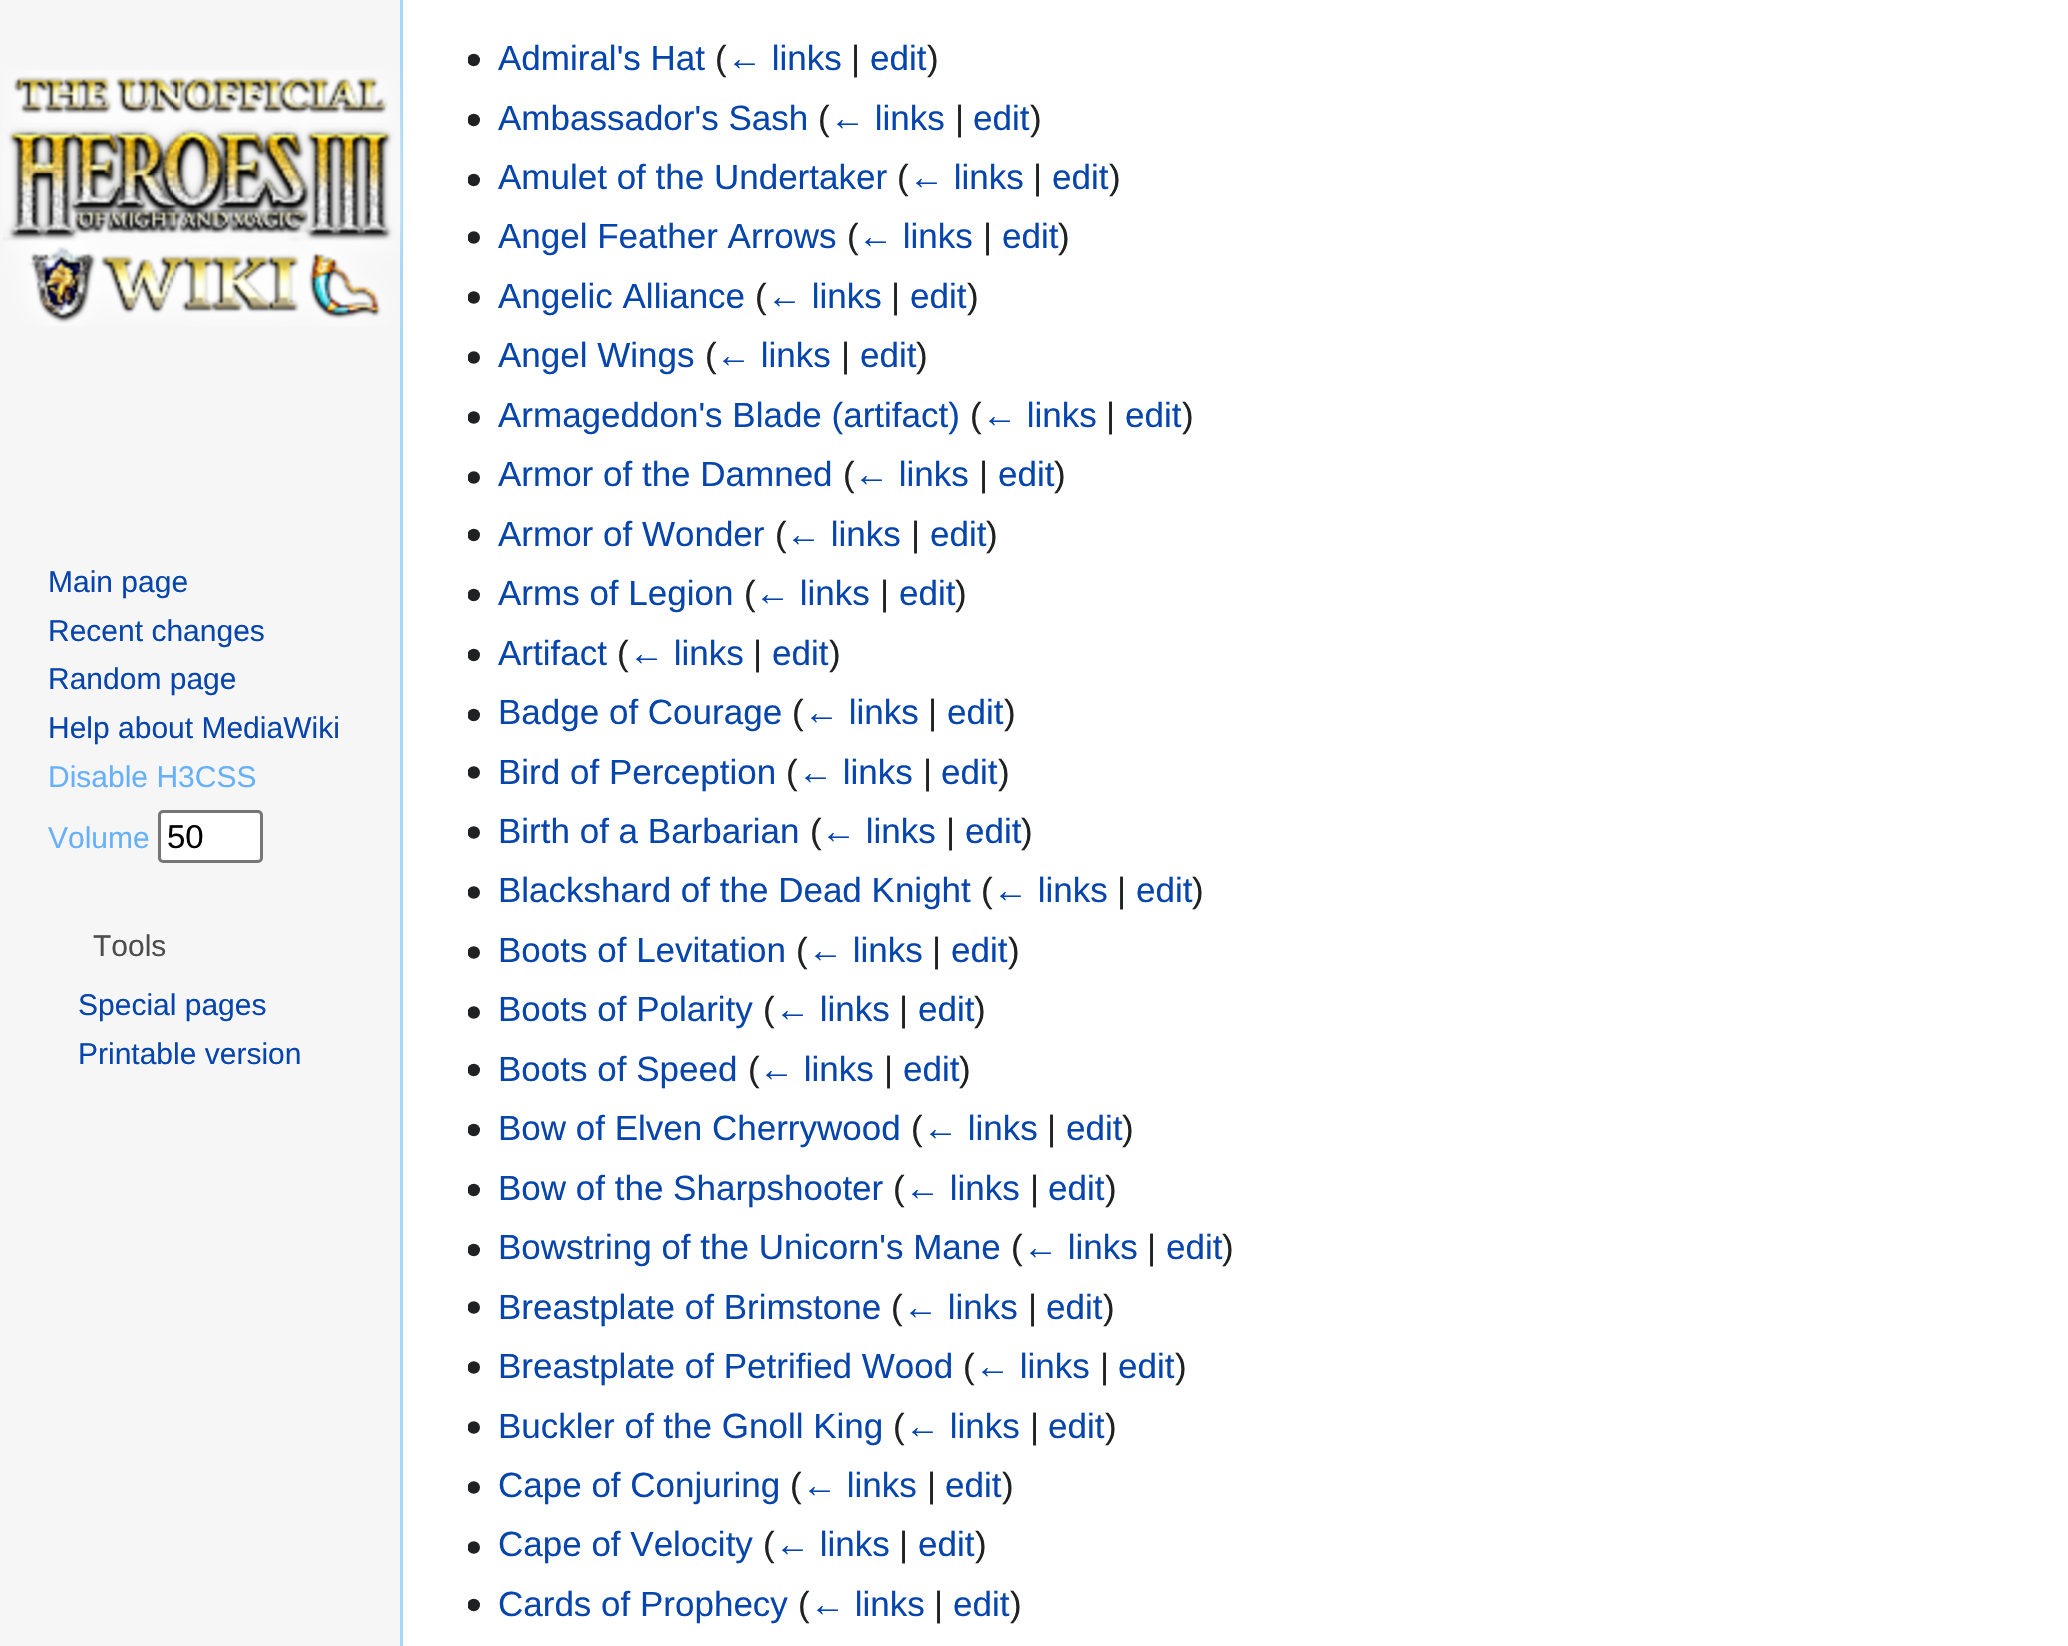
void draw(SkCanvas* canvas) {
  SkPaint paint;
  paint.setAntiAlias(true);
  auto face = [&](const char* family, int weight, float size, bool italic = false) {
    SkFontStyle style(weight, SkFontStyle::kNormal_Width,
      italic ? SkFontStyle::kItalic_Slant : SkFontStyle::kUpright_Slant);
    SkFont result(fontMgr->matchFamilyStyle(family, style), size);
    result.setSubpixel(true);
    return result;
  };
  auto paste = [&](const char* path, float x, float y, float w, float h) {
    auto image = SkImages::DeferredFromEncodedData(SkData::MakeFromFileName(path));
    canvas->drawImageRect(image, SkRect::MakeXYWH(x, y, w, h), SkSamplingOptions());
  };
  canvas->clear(0xfff6f6f6);
  paint.setColor(0xffa7d7f9);
  canvas->drawRect(SkRect::MakeXYWH(400, 0, 3, 1646), paint);
  paste("img/1.png", 3, 70, 399, 256);
  paint.setColor(0xffffffff);
  canvas->drawRoundRect(SkRect::MakeXYWH(159.5f, 811.5f, 102, 50), 3.5f, 3.5f, paint);
  paint.setStroke(true);
  paint.setStrokeWidth(3);
  paint.setColor(0xff767676);
  canvas->drawRoundRect(SkRect::MakeXYWH(159.5f, 811.5f, 102, 50), 3.5f, 3.5f, paint);
  paint.setStroke(false);
  paint.setColor(0xffffffff);
  canvas->drawRect(SkRect::MakeXYWH(403, 0, 1665, 1646), paint);
  paste("img/2.png", 468, 53, 12, 14);
  paste("img/2.png", 468, 113, 12, 14);
  paste("img/2.png", 468, 173, 12, 14);
  paste("img/3.png", 468, 231, 12, 13);
  paste("img/3.png", 468, 291, 12, 13);
  paste("img/3.png", 468, 351, 12, 13);
  paste("img/3.png", 468, 411, 12, 13);
  paste("img/3.png", 468, 471, 12, 13);
  paste("img/2.png", 468, 528, 12, 14);
  paste("img/2.png", 468, 588, 12, 14);
  paste("img/2.png", 468, 648, 12, 14);
  paste("img/2.png", 468, 708, 12, 14);
  paste("img/3.png", 468, 766, 12, 13);
  paste("img/3.png", 468, 826, 12, 13);
  paste("img/3.png", 468, 886, 12, 13);
  paste("img/3.png", 468, 946, 12, 13);
  paste("img/3.png", 468, 1006, 12, 13);
  paste("img/2.png", 468, 1063, 12, 14);
  paste("img/4.png", 468, 1123, 12, 14);
  paste("img/2.png", 468, 1183, 12, 14);
  paste("img/2.png", 468, 1243, 12, 14);
  paste("img/3.png", 468, 1301, 12, 13);
  paste("img/5.png", 468, 1361, 12, 13);
  paste("img/3.png", 468, 1421, 12, 13);
  paste("img/3.png", 468, 1481, 12, 13);
  paste("img/3.png", 468, 1541, 12, 13);
  paste("img/2.png", 468, 1598, 12, 14);
  auto f0 = face("Liberation Sans", 400, 30);
  paint.setColor(0xff0645ad);
  {
    const struct { const char* s; float x, y; } items[] = {
      {"Main page", 48, 592},
      {"Recent changes", 48, 641},
      {"Random page", 48, 689},
      {"Help about MediaWiki", 48, 738},
    };
    for (auto [s, x, y] : items) {
      canvas->drawString(s, x, y, f0, paint);
    }
  }
  paint.setColor(0xff66b1fa);
  canvas->drawString("Disable H3CSS", 48, 787, f0, paint);
  canvas->drawString("Volume", 48, 848, f0, paint);
  auto f1 = face("Liberation Sans", 400, 33);
  paint.setColor(0xff000000);
  canvas->drawString("50", 167, 848, f1, paint);
  paint.setColor(0xff4d4d4d);
  canvas->drawString("Tools", 93, 956, f0, paint);
  paint.setColor(0xff0645ad);
  canvas->drawString("Special pages", 78, 1015, f0, paint);
  canvas->drawString("Printable version", 78, 1064, f0, paint);
  auto f2 = face("Liberation Sans", 400, 35);
  canvas->drawString("Admiral's Hat", 498, 70, f2, paint);
  paint.setColor(0xff202122);
  canvas->drawString("(", 715, 70, f2, paint);
  paint.setColor(0xff0645ad);
  canvas->drawString("← links", 727, 70, f2, paint);
  paint.setColor(0xff202122);
  canvas->drawString("|", 851, 70, f2, paint);
  paint.setColor(0xff0645ad);
  canvas->drawString("edit", 870, 70, f2, paint);
  paint.setColor(0xff202122);
  canvas->drawString(")", 927, 70, f2, paint);
  paint.setColor(0xff0645ad);
  canvas->drawString("Ambassador's Sash", 498, 130, f2, paint);
  paint.setColor(0xff202122);
  canvas->drawString("(", 818, 130, f2, paint);
  paint.setColor(0xff0645ad);
  canvas->drawString("← links", 830, 130, f2, paint);
  paint.setColor(0xff202122);
  canvas->drawString("|", 955, 130, f2, paint);
  paint.setColor(0xff0645ad);
  canvas->drawString("edit", 973, 130, f2, paint);
  paint.setColor(0xff202122);
  canvas->drawString(")", 1030, 130, f2, paint);
  paint.setColor(0xff0645ad);
  canvas->drawString("Amulet of the Undertaker", 498, 189, f2, paint);
  paint.setColor(0xff202122);
  canvas->drawString("(", 897, 189, f2, paint);
  paint.setColor(0xff0645ad);
  canvas->drawString("← links", 909, 189, f2, paint);
  paint.setColor(0xff202122);
  canvas->drawString("|", 1033, 189, f2, paint);
  paint.setColor(0xff0645ad);
  canvas->drawString("edit", 1052, 189, f2, paint);
  paint.setColor(0xff202122);
  canvas->drawString(")", 1109, 189, f2, paint);
  paint.setColor(0xff0645ad);
  canvas->drawString("Angel Feather Arrows", 498, 248, f2, paint);
  paint.setColor(0xff202122);
  canvas->drawString("(", 847, 248, f2, paint);
  paint.setColor(0xff0645ad);
  canvas->drawString("← links", 858, 248, f2, paint);
  paint.setColor(0xff202122);
  canvas->drawString("|", 983, 248, f2, paint);
  paint.setColor(0xff0645ad);
  canvas->drawString("edit", 1002, 248, f2, paint);
  paint.setColor(0xff202122);
  canvas->drawString(")", 1058, 248, f2, paint);
  paint.setColor(0xff0645ad);
  canvas->drawString("Angelic Alliance", 498, 308, f2, paint);
  paint.setColor(0xff202122);
  canvas->drawString("(", 755, 308, f2, paint);
  paint.setColor(0xff0645ad);
  canvas->drawString("← links", 767, 308, f2, paint);
  paint.setColor(0xff202122);
  canvas->drawString("|", 891, 308, f2, paint);
  paint.setColor(0xff0645ad);
  canvas->drawString("edit", 910, 308, f2, paint);
  paint.setColor(0xff202122);
  canvas->drawString(")", 967, 308, f2, paint);
  paint.setColor(0xff0645ad);
  canvas->drawString("Angel Wings", 498, 367, f2, paint);
  paint.setColor(0xff202122);
  canvas->drawString("(", 705, 367, f2, paint);
  paint.setColor(0xff0645ad);
  canvas->drawString("← links", 716, 367, f2, paint);
  paint.setColor(0xff202122);
  canvas->drawString("|", 841, 367, f2, paint);
  paint.setColor(0xff0645ad);
  canvas->drawString("edit", 860, 367, f2, paint);
  paint.setColor(0xff202122);
  canvas->drawString(")", 916, 367, f2, paint);
  paint.setColor(0xff0645ad);
  canvas->drawString("Armageddon's Blade (artifact)", 498, 427, f2, paint);
  paint.setColor(0xff202122);
  canvas->drawString("(", 970, 427, f2, paint);
  paint.setColor(0xff0645ad);
  canvas->drawString("← links", 982, 427, f2, paint);
  paint.setColor(0xff202122);
  canvas->drawString("|", 1106, 427, f2, paint);
  paint.setColor(0xff0645ad);
  canvas->drawString("edit", 1125, 427, f2, paint);
  paint.setColor(0xff202122);
  canvas->drawString(")", 1182, 427, f2, paint);
  paint.setColor(0xff0645ad);
  canvas->drawString("Armor of the Damned", 498, 486, f2, paint);
  paint.setColor(0xff202122);
  canvas->drawString("(", 843, 486, f2, paint);
  paint.setColor(0xff0645ad);
  canvas->drawString("← links", 854, 486, f2, paint);
  paint.setColor(0xff202122);
  canvas->drawString("|", 979, 486, f2, paint);
  paint.setColor(0xff0645ad);
  canvas->drawString("edit", 998, 486, f2, paint);
  paint.setColor(0xff202122);
  canvas->drawString(")", 1054, 486, f2, paint);
  paint.setColor(0xff0645ad);
  canvas->drawString("Armor of Wonder", 498, 546, f2, paint);
  paint.setColor(0xff202122);
  canvas->drawString("(", 775, 546, f2, paint);
  paint.setColor(0xff0645ad);
  canvas->drawString("← links", 786, 546, f2, paint);
  paint.setColor(0xff202122);
  canvas->drawString("|", 911, 546, f2, paint);
  paint.setColor(0xff0645ad);
  canvas->drawString("edit", 930, 546, f2, paint);
  paint.setColor(0xff202122);
  canvas->drawString(")", 986, 546, f2, paint);
  paint.setColor(0xff0645ad);
  canvas->drawString("Arms of Legion", 498, 605, f2, paint);
  paint.setColor(0xff202122);
  canvas->drawString("(", 744, 605, f2, paint);
  paint.setColor(0xff0645ad);
  canvas->drawString("← links", 755, 605, f2, paint);
  paint.setColor(0xff202122);
  canvas->drawString("|", 880, 605, f2, paint);
  paint.setColor(0xff0645ad);
  canvas->drawString("edit", 899, 605, f2, paint);
  paint.setColor(0xff202122);
  canvas->drawString(")", 955, 605, f2, paint);
  paint.setColor(0xff0645ad);
  canvas->drawString("Artifact", 498, 665, f2, paint);
  paint.setColor(0xff202122);
  canvas->drawString("(", 617, 665, f2, paint);
  paint.setColor(0xff0645ad);
  canvas->drawString("← links", 629, 665, f2, paint);
  paint.setColor(0xff202122);
  canvas->drawString("|", 753, 665, f2, paint);
  paint.setColor(0xff0645ad);
  canvas->drawString("edit", 772, 665, f2, paint);
  paint.setColor(0xff202122);
  canvas->drawString(")", 829, 665, f2, paint);
  paint.setColor(0xff0645ad);
  canvas->drawString("Badge of Courage", 498, 724, f2, paint);
  paint.setColor(0xff202122);
  canvas->drawString("(", 792, 724, f2, paint);
  paint.setColor(0xff0645ad);
  canvas->drawString("← links", 804, 724, f2, paint);
  paint.setColor(0xff202122);
  canvas->drawString("|", 928, 724, f2, paint);
  paint.setColor(0xff0645ad);
  canvas->drawString("edit", 947, 724, f2, paint);
  paint.setColor(0xff202122);
  canvas->drawString(")", 1004, 724, f2, paint);
  paint.setColor(0xff0645ad);
  canvas->drawString("Bird of Perception", 498, 784, f2, paint);
  paint.setColor(0xff202122);
  canvas->drawString("(", 786, 784, f2, paint);
  paint.setColor(0xff0645ad);
  canvas->drawString("← links", 798, 784, f2, paint);
  paint.setColor(0xff202122);
  canvas->drawString("|", 923, 784, f2, paint);
  paint.setColor(0xff0645ad);
  canvas->drawString("edit", 941, 784, f2, paint);
  paint.setColor(0xff202122);
  canvas->drawString(")", 998, 784, f2, paint);
  paint.setColor(0xff0645ad);
  canvas->drawString("Birth of a Barbarian", 498, 843, f2, paint);
  paint.setColor(0xff202122);
  canvas->drawString("(", 810, 843, f2, paint);
  paint.setColor(0xff0645ad);
  canvas->drawString("← links", 821, 843, f2, paint);
  paint.setColor(0xff202122);
  canvas->drawString("|", 946, 843, f2, paint);
  paint.setColor(0xff0645ad);
  canvas->drawString("edit", 965, 843, f2, paint);
  paint.setColor(0xff202122);
  canvas->drawString(")", 1021, 843, f2, paint);
  paint.setColor(0xff0645ad);
  canvas->drawString("Blackshard of the Dead Knight", 498, 902, f2, paint);
  paint.setColor(0xff202122);
  canvas->drawString("(", 981, 902, f2, paint);
  paint.setColor(0xff0645ad);
  canvas->drawString("← links", 993, 902, f2, paint);
  paint.setColor(0xff202122);
  canvas->drawString("|", 1117, 902, f2, paint);
  paint.setColor(0xff0645ad);
  canvas->drawString("edit", 1136, 902, f2, paint);
  paint.setColor(0xff202122);
  canvas->drawString(")", 1192, 902, f2, paint);
  paint.setColor(0xff0645ad);
  canvas->drawString("Boots of Levitation", 498, 962, f2, paint);
  paint.setColor(0xff202122);
  canvas->drawString("(", 796, 962, f2, paint);
  paint.setColor(0xff0645ad);
  canvas->drawString("← links", 808, 962, f2, paint);
  paint.setColor(0xff202122);
  canvas->drawString("|", 932, 962, f2, paint);
  paint.setColor(0xff0645ad);
  canvas->drawString("edit", 951, 962, f2, paint);
  paint.setColor(0xff202122);
  canvas->drawString(")", 1008, 962, f2, paint);
  paint.setColor(0xff0645ad);
  canvas->drawString("Boots of Polarity", 498, 1021, f2, paint);
  paint.setColor(0xff202122);
  canvas->drawString("(", 763, 1021, f2, paint);
  paint.setColor(0xff0645ad);
  canvas->drawString("← links", 775, 1021, f2, paint);
  paint.setColor(0xff202122);
  canvas->drawString("|", 899, 1021, f2, paint);
  paint.setColor(0xff0645ad);
  canvas->drawString("edit", 918, 1021, f2, paint);
  paint.setColor(0xff202122);
  canvas->drawString(")", 974, 1021, f2, paint);
  paint.setColor(0xff0645ad);
  canvas->drawString("Boots of Speed", 498, 1081, f2, paint);
  paint.setColor(0xff202122);
  canvas->drawString("(", 748, 1081, f2, paint);
  paint.setColor(0xff0645ad);
  canvas->drawString("← links", 759, 1081, f2, paint);
  paint.setColor(0xff202122);
  canvas->drawString("|", 884, 1081, f2, paint);
  paint.setColor(0xff0645ad);
  canvas->drawString("edit", 903, 1081, f2, paint);
  paint.setColor(0xff202122);
  canvas->drawString(")", 959, 1081, f2, paint);
  paint.setColor(0xff0645ad);
  canvas->drawString("Bow of Elven Cherrywood", 498, 1140, f2, paint);
  paint.setColor(0xff202122);
  canvas->drawString("(", 911, 1140, f2, paint);
  paint.setColor(0xff0645ad);
  canvas->drawString("← links", 923, 1140, f2, paint);
  paint.setColor(0xff202122);
  canvas->drawString("|", 1047, 1140, f2, paint);
  paint.setColor(0xff0645ad);
  canvas->drawString("edit", 1066, 1140, f2, paint);
  paint.setColor(0xff202122);
  canvas->drawString(")", 1122, 1140, f2, paint);
  paint.setColor(0xff0645ad);
  canvas->drawString("Bow of the Sharpshooter", 498, 1200, f2, paint);
  paint.setColor(0xff202122);
  canvas->drawString("(", 893, 1200, f2, paint);
  paint.setColor(0xff0645ad);
  canvas->drawString("← links", 905, 1200, f2, paint);
  paint.setColor(0xff202122);
  canvas->drawString("|", 1030, 1200, f2, paint);
  paint.setColor(0xff0645ad);
  canvas->drawString("edit", 1048, 1200, f2, paint);
  paint.setColor(0xff202122);
  canvas->drawString(")", 1105, 1200, f2, paint);
  paint.setColor(0xff0645ad);
  canvas->drawString("Bowstring of the Unicorn's Mane", 498, 1259, f2, paint);
  paint.setColor(0xff202122);
  canvas->drawString("(", 1011, 1259, f2, paint);
  paint.setColor(0xff0645ad);
  canvas->drawString("← links", 1023, 1259, f2, paint);
  paint.setColor(0xff202122);
  canvas->drawString("|", 1147, 1259, f2, paint);
  paint.setColor(0xff0645ad);
  canvas->drawString("edit", 1166, 1259, f2, paint);
  paint.setColor(0xff202122);
  canvas->drawString(")", 1222, 1259, f2, paint);
  paint.setColor(0xff0645ad);
  canvas->drawString("Breastplate of Brimstone", 498, 1319, f2, paint);
  paint.setColor(0xff202122);
  canvas->drawString("(", 891, 1319, f2, paint);
  paint.setColor(0xff0645ad);
  canvas->drawString("← links", 903, 1319, f2, paint);
  paint.setColor(0xff202122);
  canvas->drawString("|", 1028, 1319, f2, paint);
  paint.setColor(0xff0645ad);
  canvas->drawString("edit", 1046, 1319, f2, paint);
  paint.setColor(0xff202122);
  canvas->drawString(")", 1103, 1319, f2, paint);
  paint.setColor(0xff0645ad);
  canvas->drawString("Breastplate of Petrified Wood", 498, 1378, f2, paint);
  paint.setColor(0xff202122);
  canvas->drawString("(", 963, 1378, f2, paint);
  paint.setColor(0xff0645ad);
  canvas->drawString("← links", 975, 1378, f2, paint);
  paint.setColor(0xff202122);
  canvas->drawString("|", 1100, 1378, f2, paint);
  paint.setColor(0xff0645ad);
  canvas->drawString("edit", 1118, 1378, f2, paint);
  paint.setColor(0xff202122);
  canvas->drawString(")", 1175, 1378, f2, paint);
  paint.setColor(0xff0645ad);
  canvas->drawString("Buckler of the Gnoll King", 498, 1438, f2, paint);
  paint.setColor(0xff202122);
  canvas->drawString("(", 893, 1438, f2, paint);
  paint.setColor(0xff0645ad);
  canvas->drawString("← links", 905, 1438, f2, paint);
  paint.setColor(0xff202122);
  canvas->drawString("|", 1030, 1438, f2, paint);
  paint.setColor(0xff0645ad);
  canvas->drawString("edit", 1048, 1438, f2, paint);
  paint.setColor(0xff202122);
  canvas->drawString(")", 1105, 1438, f2, paint);
  paint.setColor(0xff0645ad);
  canvas->drawString("Cape of Conjuring", 498, 1497, f2, paint);
  paint.setColor(0xff202122);
  canvas->drawString("(", 790, 1497, f2, paint);
  paint.setColor(0xff0645ad);
  canvas->drawString("← links", 802, 1497, f2, paint);
  paint.setColor(0xff202122);
  canvas->drawString("|", 927, 1497, f2, paint);
  paint.setColor(0xff0645ad);
  canvas->drawString("edit", 945, 1497, f2, paint);
  paint.setColor(0xff202122);
  canvas->drawString(")", 1002, 1497, f2, paint);
  paint.setColor(0xff0645ad);
  canvas->drawString("Cape of Velocity", 498, 1556, f2, paint);
  paint.setColor(0xff202122);
  canvas->drawString("(", 763, 1556, f2, paint);
  paint.setColor(0xff0645ad);
  canvas->drawString("← links", 775, 1556, f2, paint);
  paint.setColor(0xff202122);
  canvas->drawString("|", 899, 1556, f2, paint);
  paint.setColor(0xff0645ad);
  canvas->drawString("edit", 918, 1556, f2, paint);
  paint.setColor(0xff202122);
  canvas->drawString(")", 975, 1556, f2, paint);
  paint.setColor(0xff0645ad);
  canvas->drawString("Cards of Prophecy", 498, 1616, f2, paint);
  paint.setColor(0xff202122);
  canvas->drawString("(", 798, 1616, f2, paint);
  paint.setColor(0xff0645ad);
  canvas->drawString("← links", 810, 1616, f2, paint);
  paint.setColor(0xff202122);
  canvas->drawString("|", 934, 1616, f2, paint);
  paint.setColor(0xff0645ad);
  canvas->drawString("edit", 953, 1616, f2, paint);
  paint.setColor(0xff202122);
  canvas->drawString(")", 1010, 1616, f2, paint);
}
